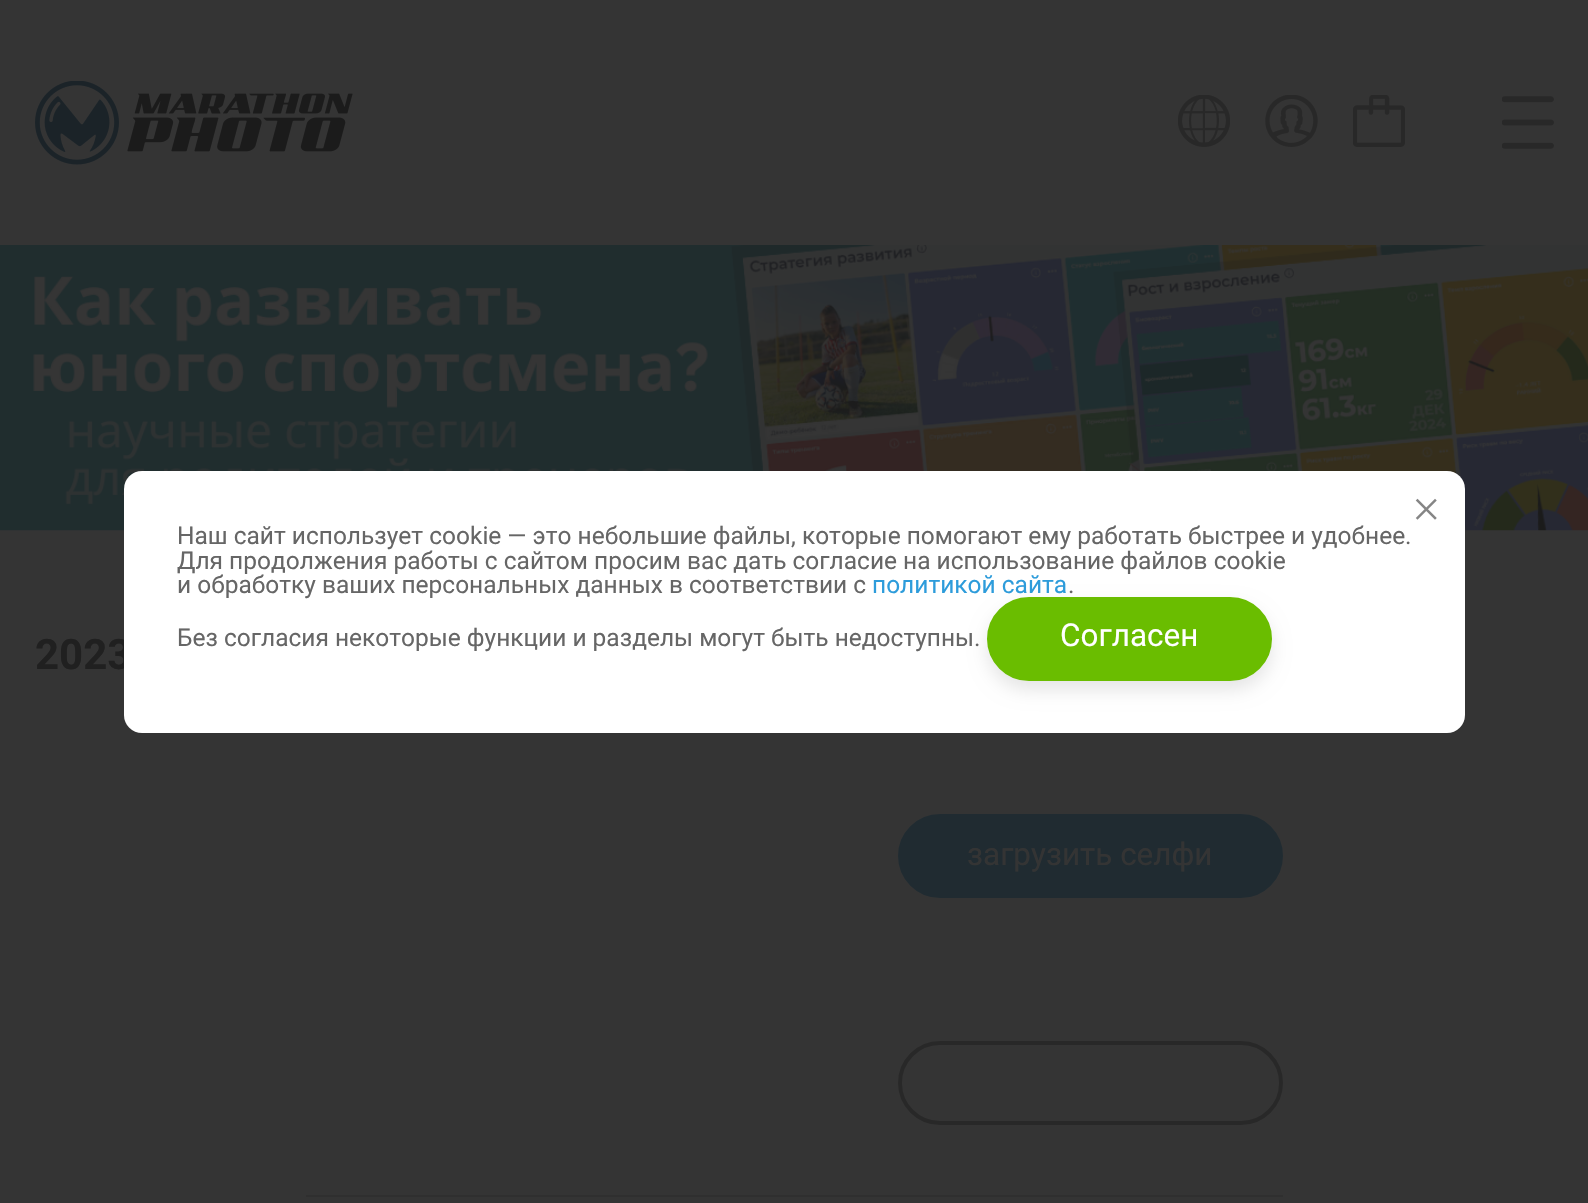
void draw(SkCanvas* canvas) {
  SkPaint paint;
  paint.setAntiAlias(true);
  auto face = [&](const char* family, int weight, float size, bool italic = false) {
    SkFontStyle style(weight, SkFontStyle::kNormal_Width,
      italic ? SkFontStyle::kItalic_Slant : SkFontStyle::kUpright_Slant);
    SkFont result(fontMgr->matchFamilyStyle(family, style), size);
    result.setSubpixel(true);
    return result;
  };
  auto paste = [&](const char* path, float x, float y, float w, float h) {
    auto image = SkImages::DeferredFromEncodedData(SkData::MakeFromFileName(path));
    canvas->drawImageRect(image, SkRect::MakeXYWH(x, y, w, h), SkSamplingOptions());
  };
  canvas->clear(0xff343434);
  paste("img/1.png", 35, 81, 318, 84);
  paste("img/2.png", 1178, 95, 52, 52);
  paste("img/3.png", 1265, 95, 53, 52);
  paste("img/4.png", 1353, 95, 52, 52);
  paste("img/5.png", 1502, 96, 52, 53);
  paste("img/6.png", 0, 245, 1588, 286);
  paint.setColor(0xff2f2f2f);
  canvas->drawRect(SkRect::MakeXYWH(306, 1195, 977, 2), paint);
  paint.setColor(0xff202b31);
  canvas->drawRoundRect(SkRect::MakeXYWH(900, 816, 381, 80), 40, 40, paint);
  paint.setStroke(true);
  paint.setStrokeWidth(4);
  canvas->drawRoundRect(SkRect::MakeXYWH(900, 816, 381, 80), 40, 40, paint);
  paint.setColor(0xff282828);
  canvas->drawRoundRect(SkRect::MakeXYWH(900, 1043, 381, 80), 40, 40, paint);
  auto f0 = face("Roboto", 700, 42);
  paint.setStroke(false);
  paint.setColor(0xff202020);
  canvas->drawString("2023", 35, 669, f0, paint);
  paint.setColor(0xffffffff);
  canvas->drawRoundRect(SkRect::MakeXYWH(124, 471, 1341, 262), 18, 18, paint);
  paste("img/7.png", 1415, 498, 22, 22);
  auto f1 = face("Roboto", 400, 24.5f);
  paint.setColor(0xff666666);
  {
    const struct { const char* s; float x, y; } items[] = {
      {"Наш сайт использует cookie — это небольшие файлы, которые помогают ему работать быстрее и удобнее.", 177, 544},
      {"Для продолжения работы с сайтом просим вас дать согласие на использование файлов cookie", 177, 569},
      {"и обработку ваших персональных данных в соответствии с", 177, 593},
    };
    for (auto [s, x, y] : items) {
      canvas->drawString(s, x, y, f1, paint);
    }
  }
  paint.setColor(0xff2d9cdb);
  canvas->drawString("политикой сайта", 872, 593, f1, paint);
  paint.setColor(0xff666666);
  canvas->drawString(".", 1068, 593, f1, paint);
  canvas->drawString("Без согласия некоторые функции и разделы могут быть недоступны.", 177, 646, f1, paint);
  paint.setColor(0x1a000000);
  paint.setMaskFilter(SkMaskFilter::MakeBlur(kNormal_SkBlurStyle, 9));
  canvas->drawRoundRect(SkRect::MakeXYWH(987, 606, 285, 84), 42, 42, paint);
  paint.setMaskFilter(nullptr);
  paint.setColor(0xff6abd00);
  canvas->drawRoundRect(SkRect::MakeXYWH(989, 599, 281, 80), 40, 40, paint);
  paint.setStroke(true);
  canvas->drawRoundRect(SkRect::MakeXYWH(989, 599, 281, 80), 40, 40, paint);
  auto f2 = face("Roboto", 400, 31.5f);
  paint.setStroke(false);
  paint.setColor(0xffffffff);
  canvas->drawString("Согласен", 1060, 646, f2, paint);
  paint.setColor(0xff343434);
  canvas->drawString("загрузить селфи", 967, 865, f2, paint);
}
